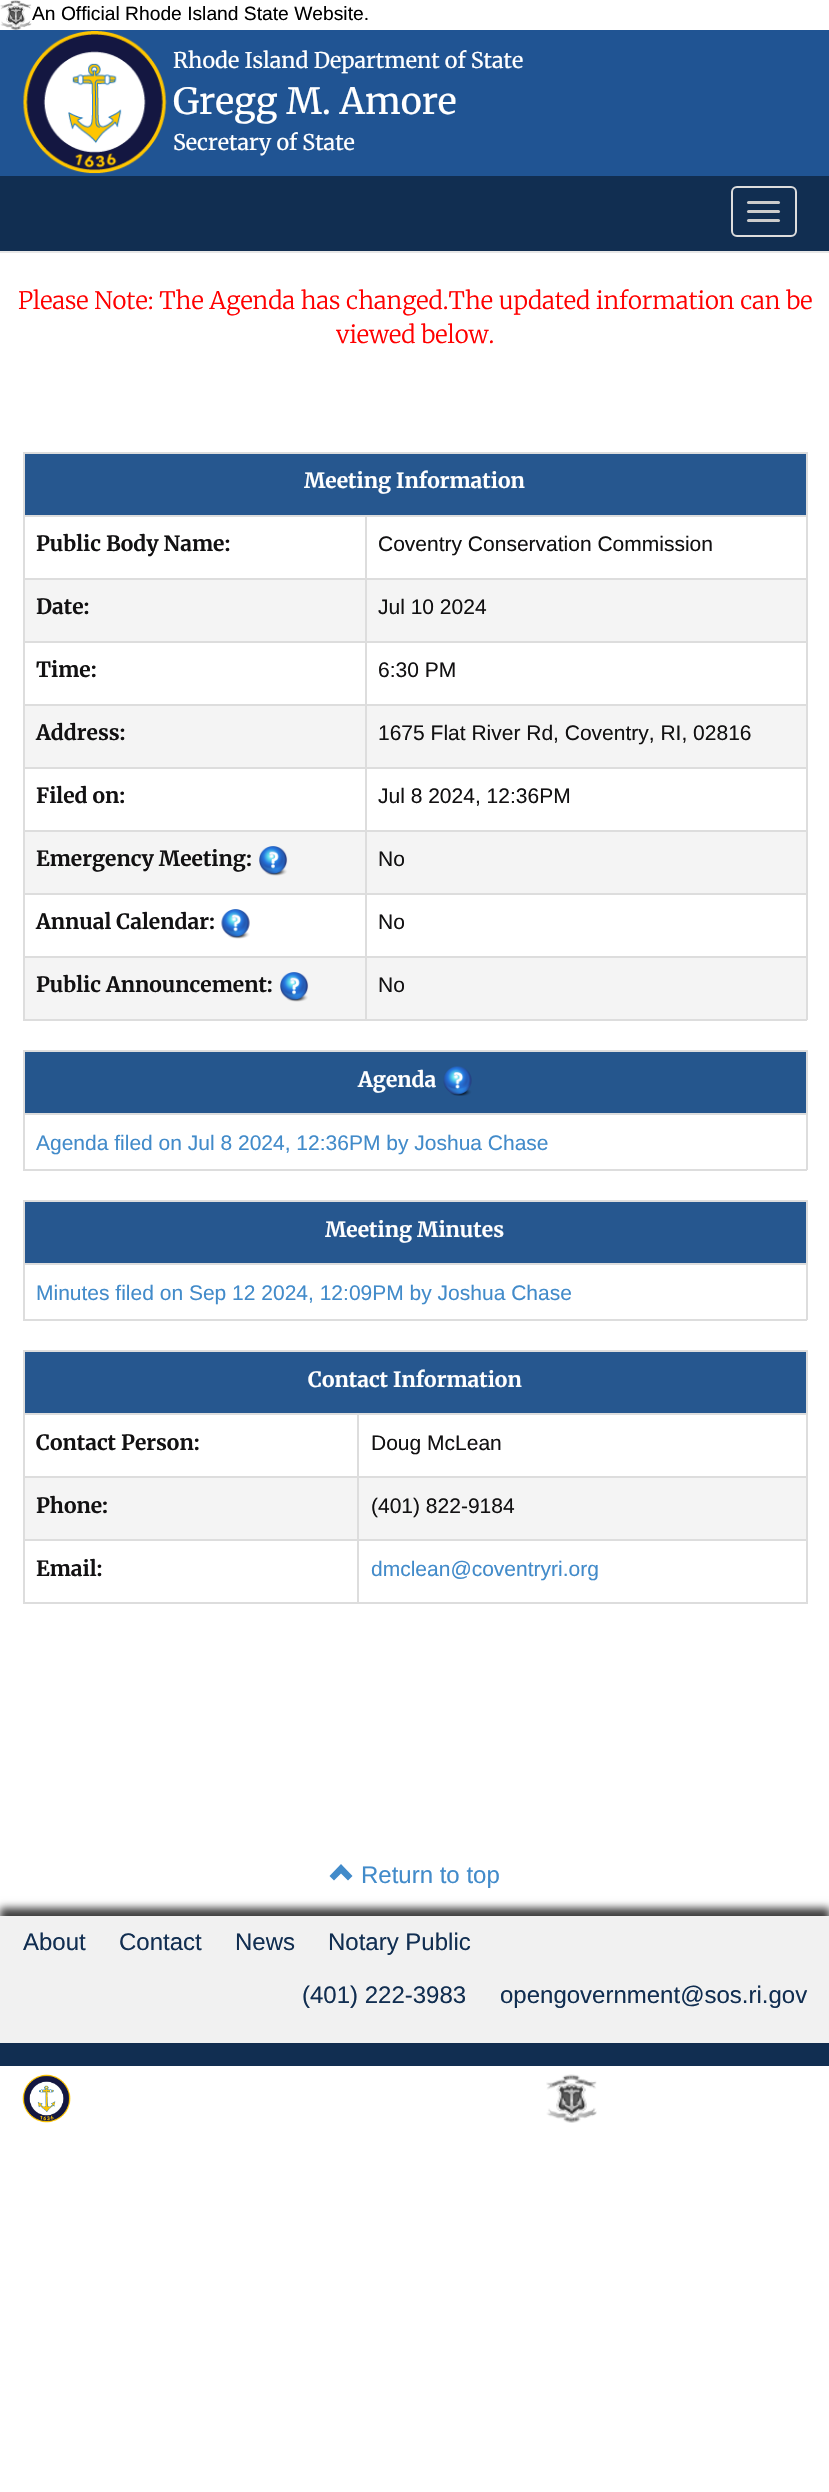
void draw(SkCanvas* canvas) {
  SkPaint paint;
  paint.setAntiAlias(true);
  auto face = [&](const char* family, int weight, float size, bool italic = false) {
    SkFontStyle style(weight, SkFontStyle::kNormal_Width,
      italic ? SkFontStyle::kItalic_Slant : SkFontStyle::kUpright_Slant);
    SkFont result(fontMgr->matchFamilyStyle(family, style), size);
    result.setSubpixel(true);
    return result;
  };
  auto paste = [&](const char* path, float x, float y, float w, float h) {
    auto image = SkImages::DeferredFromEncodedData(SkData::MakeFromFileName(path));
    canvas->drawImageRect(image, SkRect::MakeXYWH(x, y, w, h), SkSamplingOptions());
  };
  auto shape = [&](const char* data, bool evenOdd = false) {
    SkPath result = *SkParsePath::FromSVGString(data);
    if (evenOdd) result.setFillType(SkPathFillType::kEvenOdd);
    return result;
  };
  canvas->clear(0xffffffff);
  paint.setColor(0xff205493);
  canvas->drawRect(SkRect::MakeXYWH(0, 30, 829, 146), paint);
  paste("img/1.png", 0, 0, 32, 30);
  paste("img/2.png", 23, 31, 144, 143);
  paint.setColor(0xffe7e7e7);
  canvas->drawRect(SkRect::MakeXYWH(0, 251, 829, 2), paint);
  paint.setColor(0xff112e51);
  canvas->drawRect(SkRect::MakeXYWH(0, 176, 829, 75), paint);
  paint.setStroke(true);
  paint.setStrokeWidth(2);
  paint.setColor(0xffdddddd);
  canvas->drawRoundRect(SkRect::MakeXYWH(732, 187, 64, 49), 5, 5, paint);
  paint.setStroke(false);
  paint.setColor(0xffcccccc);
  canvas->drawRoundRect(SkRect::MakeXYWH(747, 201, 33, 3), 1.5f, 1.5f, paint);
  canvas->drawRoundRect(SkRect::MakeXYWH(747, 210, 33, 3), 1.5f, 1.5f, paint);
  canvas->drawRoundRect(SkRect::MakeXYWH(747, 219, 33, 3), 1.5f, 1.5f, paint);
  {
    const struct { float x, y, w, h; SkColor color; } items[] = {
      {25, 454, 781, 61, 0xff26578f},
      {23, 452, 784, 2, 0xffdddddd},
      {365, 515, 442, 2, 0xffdddddd},
      {365, 578, 442, 2, 0xffdddddd},
      {365, 641, 442, 2, 0xffdddddd},
      {365, 704, 442, 2, 0xffdddddd},
      {365, 767, 442, 2, 0xffdddddd},
      {365, 830, 442, 2, 0xffdddddd},
      {365, 893, 442, 2, 0xffdddddd},
      {365, 956, 442, 2, 0xffdddddd},
      {806, 956, 2, 64, 0xffdddddd},
      {806, 893, 2, 64, 0xffdddddd},
      {806, 830, 2, 64, 0xffdddddd},
      {806, 767, 2, 64, 0xffdddddd},
      {806, 704, 2, 64, 0xffdddddd},
      {806, 641, 2, 64, 0xffdddddd},
      {806, 578, 2, 64, 0xffdddddd},
      {806, 515, 2, 64, 0xffdddddd},
      {806, 452, 2, 64, 0xffdddddd},
      {25, 580, 781, 61, 0xfff4f4f4},
      {25, 706, 781, 61, 0xfff4f4f4},
      {25, 832, 781, 61, 0xfff4f4f4},
      {25, 958, 781, 61, 0xfff4f4f4},
      {365, 1019, 442, 2, 0xffdddddd},
      {365, 956, 2, 64, 0xffdddddd},
      {23, 956, 343, 2, 0xffdddddd},
      {365, 893, 2, 64, 0xffdddddd},
      {23, 893, 343, 2, 0xffdddddd},
      {365, 830, 2, 64, 0xffdddddd},
      {23, 830, 343, 2, 0xffdddddd},
      {365, 767, 2, 64, 0xffdddddd},
      {23, 767, 343, 2, 0xffdddddd},
      {365, 704, 2, 64, 0xffdddddd},
      {23, 704, 343, 2, 0xffdddddd},
      {365, 641, 2, 64, 0xffdddddd},
      {23, 641, 343, 2, 0xffdddddd},
      {365, 578, 2, 64, 0xffdddddd},
      {23, 578, 343, 2, 0xffdddddd},
      {365, 515, 2, 64, 0xffdddddd},
      {23, 515, 343, 2, 0xffdddddd},
      {23, 1019, 343, 2, 0xffdddddd},
      {23, 956, 2, 64, 0xffdddddd},
      {23, 893, 2, 64, 0xffdddddd},
      {23, 830, 2, 64, 0xffdddddd},
      {23, 767, 2, 64, 0xffdddddd},
      {23, 704, 2, 64, 0xffdddddd},
      {23, 641, 2, 64, 0xffdddddd},
      {23, 578, 2, 64, 0xffdddddd},
      {23, 515, 2, 64, 0xffdddddd},
      {23, 452, 2, 64, 0xffdddddd},
    };
    for (auto [x, y, w, h, color] : items) {
      paint.setColor(color);
      canvas->drawRect(SkRect::MakeXYWH(x, y, w, h), paint);
    }
  }
  paste("img/3.png", 259, 846, 29, 30);
  paste("img/4.png", 221, 909, 29, 30);
  paste("img/5.png", 280, 972, 29, 30);
  {
    const struct { float x, y, w, h; SkColor color; } items[] = {
      {25, 1052, 781, 61, 0xff25568d},
      {23, 1050, 784, 2, 0xffdddddd},
      {23, 1113, 784, 2, 0xffdddddd},
      {806, 1113, 2, 57, 0xffdddddd},
      {806, 1050, 2, 65, 0xffdddddd},
      {23, 1169, 784, 2, 0xffdddddd},
      {23, 1113, 2, 57, 0xffdddddd},
      {23, 1050, 2, 65, 0xffdddddd},
    };
    for (auto [x, y, w, h, color] : items) {
      paint.setColor(color);
      canvas->drawRect(SkRect::MakeXYWH(x, y, w, h), paint);
    }
  }
  paste("img/6.png", 443, 1066, 29, 30);
  {
    const struct { float x, y, w, h; SkColor color; } items[] = {
      {25, 1202, 781, 61, 0xff26578f},
      {23, 1200, 784, 2, 0xffdddddd},
      {23, 1263, 784, 2, 0xffdddddd},
      {806, 1263, 2, 57, 0xffdddddd},
      {806, 1200, 2, 65, 0xffdddddd},
      {23, 1319, 784, 2, 0xffdddddd},
      {23, 1263, 2, 57, 0xffdddddd},
      {23, 1200, 2, 65, 0xffdddddd},
      {25, 1352, 781, 61, 0xff26578f},
      {23, 1350, 784, 2, 0xffdddddd},
      {357, 1413, 450, 2, 0xffdddddd},
      {357, 1476, 450, 2, 0xffdddddd},
      {357, 1539, 450, 2, 0xffdddddd},
      {806, 1539, 2, 65, 0xffdddddd},
      {806, 1476, 2, 65, 0xffdddddd},
      {806, 1413, 2, 65, 0xffdddddd},
      {806, 1350, 2, 65, 0xffdddddd},
      {25, 1478, 781, 61, 0xfff4f4f4},
      {357, 1602, 450, 2, 0xffdddddd},
      {357, 1539, 2, 65, 0xffdddddd},
      {23, 1539, 336, 2, 0xffdddddd},
      {357, 1476, 2, 65, 0xffdddddd},
      {23, 1476, 336, 2, 0xffdddddd},
      {357, 1413, 2, 65, 0xffdddddd},
      {23, 1413, 336, 2, 0xffdddddd},
      {23, 1602, 336, 2, 0xffdddddd},
      {23, 1539, 2, 65, 0xffdddddd},
      {23, 1476, 2, 65, 0xffdddddd},
      {23, 1413, 2, 65, 0xffdddddd},
      {23, 1350, 2, 65, 0xffdddddd},
    };
    for (auto [x, y, w, h, color] : items) {
      paint.setColor(color);
      canvas->drawRect(SkRect::MakeXYWH(x, y, w, h), paint);
    }
  }
  paint.setColor(0xff428bca);
  canvas->drawPath(shape("M348 1880.5L352.5 1876L341 1864L329.5 1876L334 1880.5L341 1873.5Z"), paint);
  paint.setColor(0xff112e51);
  canvas->drawRect(SkRect::MakeXYWH(0, 2043, 829, 23), paint);
  paint.setColor(0xbf000000);
  paint.setMaskFilter(SkMaskFilter::MakeBlur(kNormal_SkBlurStyle, 4));
  canvas->drawRect(SkRect::MakeXYWH(0, 1908, 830, 128), paint);
  paint.setMaskFilter(nullptr);
  paint.setColor(0xfff1f1f1);
  canvas->drawRect(SkRect::MakeXYWH(0, 1916, 829, 127), paint);
  paste("img/7.png", 22, 2074, 49, 49);
  paste("img/8.png", 546, 2074, 51, 49);
  auto f0 = face("Liberation Sans", 400, 19.25f);
  paint.setColor(0xff000000);
  canvas->drawString("An Official Rhode Island State Website.", 32, 20, f0, paint);
  auto f1 = face("Merriweather", 400, 21.6f);
  paint.setColor(0xffffffff);
  canvas->drawString("Rhode Island Department of State", 173, 68, f1, paint);
  auto f2 = face("Merriweather", 400, 36);
  canvas->drawString("Gregg M. Amore", 173, 114, f2, paint);
  canvas->drawString("Secretary of State", 173, 150, f1, paint);
  auto f3 = face("Merriweather", 300, 24);
  paint.setColor(0xffff0000);
  canvas->drawString("Please Note: The Agenda has changed.The updated information can be", 18, 309, f3, paint);
  canvas->drawString("viewed below.", 336, 343, f3, paint);
  auto f4 = face("Merriweather", 700, 21);
  paint.setColor(0xffffffff);
  canvas->drawString("Meeting Information", 304, 488, f4, paint);
  paint.setColor(0xff121112);
  canvas->drawString("Public Body Name:", 36, 551, f4, paint);
  auto f5 = face("Liberation Sans", 400, 21);
  canvas->drawString("Coventry Conservation Commission", 378, 551, f5, paint);
  canvas->drawString("Date:", 36, 614, f4, paint);
  canvas->drawString("Jul 10 2024", 378, 614, f5, paint);
  canvas->drawString("Time:", 36, 677, f4, paint);
  canvas->drawString("6:30 PM", 378, 677, f5, paint);
  canvas->drawString("Address:", 36, 740, f4, paint);
  canvas->drawString("1675 Flat River Rd, Coventry, RI, 02816", 378, 740, f5, paint);
  canvas->drawString("Filed on:", 36, 803, f4, paint);
  canvas->drawString("Jul 8 2024, 12:36PM", 378, 803, f5, paint);
  canvas->drawString("Emergency Meeting:", 36, 866, f4, paint);
  canvas->drawString("No", 378, 866, f5, paint);
  canvas->drawString("Annual Calendar:", 36, 929, f4, paint);
  canvas->drawString("No", 378, 929, f5, paint);
  canvas->drawString("Public Announcement:", 36, 992, f4, paint);
  canvas->drawString("No", 378, 992, f5, paint);
  paint.setColor(0xffffffff);
  canvas->drawString("Agenda", 358, 1087, f4, paint);
  paint.setColor(0xff428bca);
  canvas->drawString("Agenda filed on Jul 8 2024, 12:36PM by Joshua Chase", 36, 1150, f5, paint);
  paint.setColor(0xffffffff);
  canvas->drawString("Meeting Minutes", 325, 1237, f4, paint);
  paint.setColor(0xff428bca);
  canvas->drawString("Minutes filed on Sep 12 2024, 12:09PM by Joshua Chase", 36, 1300, f5, paint);
  paint.setColor(0xffffffff);
  canvas->drawString("Contact Information", 308, 1387, f4, paint);
  paint.setColor(0xff121112);
  canvas->drawString("Contact Person:", 36, 1450, f4, paint);
  canvas->drawString("Doug McLean", 371, 1450, f5, paint);
  canvas->drawString("Phone:", 36, 1513, f4, paint);
  canvas->drawString("(401) 822-9184", 371, 1513, f5, paint);
  canvas->drawString("Email:", 36, 1576, f4, paint);
  paint.setColor(0xff428bca);
  canvas->drawString("dmclean@coventryri.org", 371, 1576, f5, paint);
  auto f6 = face("Liberation Sans", 400, 24);
  canvas->drawString("Return to top", 361, 1883, f6, paint);
  paint.setColor(0xff112e51);
  {
    const struct { const char* s; float x, y; } items[] = {
      {"About", 23, 1950},
      {"Contact", 119, 1950},
      {"News", 235, 1950},
      {"Notary Public", 328, 1950},
      {"(401) 222-3983", 302, 2003},
      {"opengovernment@sos.ri.gov", 500, 2003},
    };
    for (auto [s, x, y] : items) {
      canvas->drawString(s, x, y, f6, paint);
    }
  }
}
